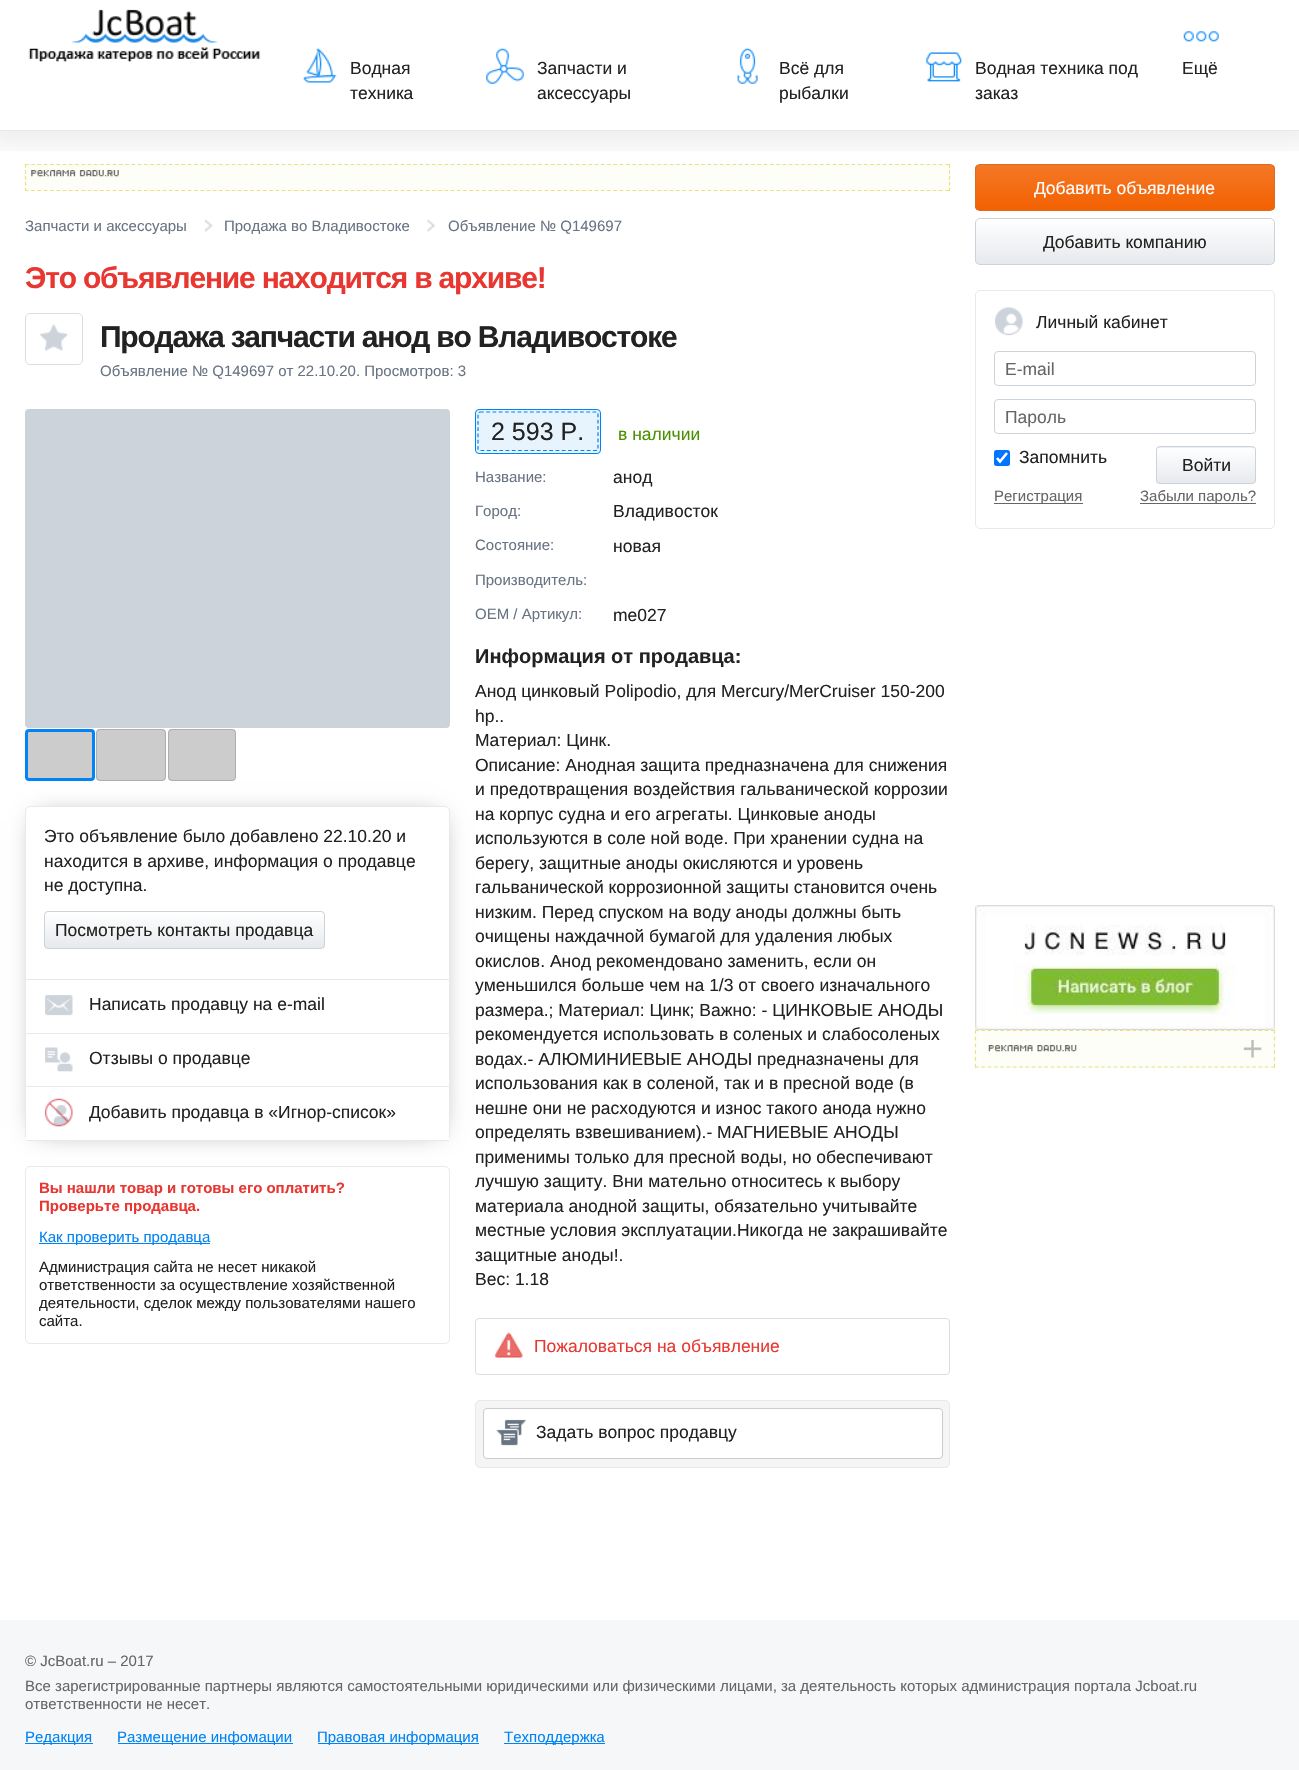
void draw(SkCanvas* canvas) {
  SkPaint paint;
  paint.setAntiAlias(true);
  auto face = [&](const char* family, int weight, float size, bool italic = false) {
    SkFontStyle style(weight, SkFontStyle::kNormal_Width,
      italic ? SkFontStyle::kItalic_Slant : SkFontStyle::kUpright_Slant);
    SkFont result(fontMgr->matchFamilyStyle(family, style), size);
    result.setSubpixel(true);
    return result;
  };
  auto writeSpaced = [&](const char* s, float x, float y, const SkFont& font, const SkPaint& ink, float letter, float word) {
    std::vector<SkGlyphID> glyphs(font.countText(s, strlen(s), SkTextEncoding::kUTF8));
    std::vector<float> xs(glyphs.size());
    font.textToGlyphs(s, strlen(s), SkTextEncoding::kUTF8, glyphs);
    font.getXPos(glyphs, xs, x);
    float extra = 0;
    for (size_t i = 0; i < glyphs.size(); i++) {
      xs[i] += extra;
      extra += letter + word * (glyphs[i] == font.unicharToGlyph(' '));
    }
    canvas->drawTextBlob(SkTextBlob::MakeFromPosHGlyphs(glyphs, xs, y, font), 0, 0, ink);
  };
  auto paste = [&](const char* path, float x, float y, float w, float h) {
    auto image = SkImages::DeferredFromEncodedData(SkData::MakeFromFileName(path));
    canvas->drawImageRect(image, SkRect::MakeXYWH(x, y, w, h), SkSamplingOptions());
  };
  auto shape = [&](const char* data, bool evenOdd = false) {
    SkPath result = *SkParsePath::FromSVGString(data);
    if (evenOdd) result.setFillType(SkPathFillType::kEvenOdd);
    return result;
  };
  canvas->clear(0xffffffff);
  canvas->save();
  canvas->clipRect(SkRect::MakeXYWH(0, 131, 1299, 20));
  paint.setColor(0x12000000);
  paint.setMaskFilter(SkMaskFilter::MakeBlur(kNormal_SkBlurStyle, 12.5f));
  canvas->drawRect(SkRect::MakeXYWH(-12, -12, 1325, 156), paint);
  paint.setMaskFilter(nullptr);
  canvas->restore();
  paint.setColor(0xffe6e9ed);
  canvas->drawRect(SkRect::MakeXYWH(0, 130, 1299, 1), paint);
  paste("img/1.png", 28, 9, 233, 53);
  paste("img/2.png", 303, 48, 34, 35);
  paste("img/3.png", 486, 48, 38, 36);
  paste("img/4.png", 737, 48, 21, 36);
  paste("img/5.png", 926, 52, 36, 30);
  paste("img/6.png", 1183, 31, 36, 11);
  paint.setColor(0xfffefef8);
  canvas->drawRect(SkRect::MakeXYWH(25, 164, 925, 27), paint);
  paste("img/7.png", 31, 170, 88, 7);
  paint.setStroke(true);
  paint.setStrokeWidth(1.2f);
  paint.setColor(0xffeae27f);
  paint.setPathEffect(SkDashPathEffect::Make({{3.75f, 2.51f}}, 0));
  canvas->drawPath(shape("M25 164.5H950"), paint);
  paint.setPathEffect(nullptr);
  paint.setPathEffect(SkDashPathEffect::Make({{3.75f, 2.19f}}, 0));
  canvas->drawPath(shape("M949.5 164V191"), paint);
  paint.setPathEffect(nullptr);
  paint.setPathEffect(SkDashPathEffect::Make({{3.75f, 2.51f}}, 0));
  canvas->drawPath(shape("M25 190.5H950"), paint);
  paint.setPathEffect(nullptr);
  paint.setPathEffect(SkDashPathEffect::Make({{3.75f, 2.19f}}, 0));
  canvas->drawPath(shape("M25.5 164V191"), paint);
  paint.setPathEffect(nullptr);
  paste("img/8.png", 205, 219, 8, 14);
  paste("img/9.png", 427, 219, 8, 13);
  paint.setStrokeWidth(1);
  paint.setColor(0xffdddddd);
  canvas->drawRoundRect(SkRect::MakeXYWH(25.5f, 313.5f, 57, 51), 4.5f, 4.5f, paint);
  paste("img/10.png", 40, 324, 28, 28);
  paint.setStroke(false);
  paint.setColor(0xffcdd3da);
  canvas->drawRoundRect(SkRect::MakeXYWH(25, 409, 425, 319), 4, 4, paint);
  paint.setColor(0x80000000);
  paint.setMaskFilter(SkMaskFilter::MakeBlur(kNormal_SkBlurStyle, 12.5f));
  canvas->drawRect(SkRect::MakeXYWH(38, 819, 400, 310), paint);
  paint.setMaskFilter(nullptr);
  paint.setColor(0xffcccccc);
  canvas->drawRoundRect(SkRect::MakeXYWH(26.5f, 730.5f, 67, 49), 2.5f, 2.5f, paint);
  paint.setStroke(true);
  paint.setStrokeWidth(3);
  paint.setColor(0xff0083f4);
  canvas->drawRoundRect(SkRect::MakeXYWH(26.5f, 730.5f, 67, 49), 2.5f, 2.5f, paint);
  paint.setStroke(false);
  paint.setColor(0xffcccccc);
  canvas->drawRoundRect(SkRect::MakeXYWH(96, 729, 70, 52), 4, 4, paint);
  paint.setStroke(true);
  paint.setStrokeWidth(1);
  paint.setColor(0x26000000);
  canvas->drawRoundRect(SkRect::MakeXYWH(96.5f, 729.5f, 69, 51), 3.5f, 3.5f, paint);
  paint.setStroke(false);
  paint.setColor(0xffcccccc);
  canvas->drawRoundRect(SkRect::MakeXYWH(168, 729, 68, 52), 4, 4, paint);
  paint.setStroke(true);
  paint.setColor(0x26000000);
  canvas->drawRoundRect(SkRect::MakeXYWH(168.5f, 729.5f, 67, 51), 3.5f, 3.5f, paint);
  paint.setStroke(false);
  paint.setColor(0xffffffff);
  canvas->drawRoundRect(SkRect::MakeXYWH(25.5f, 806.5f, 424, 334), 4.5f, 4.5f, paint);
  paint.setStroke(true);
  paint.setColor(0xffe6e9ed);
  canvas->drawRoundRect(SkRect::MakeXYWH(25.5f, 806.5f, 424, 334), 4.5f, 4.5f, paint);
  canvas->save();
  canvas->clipPath(shape("M48 911H321C323 911 325 913 325 915V945C325 947 323 949 321 949H48C46 949 44 947 44 945V915C44 913 46 911 48 911Z"), true);
  paint.setStroke(false);
  {
    const SkColor colors[] = {0xffffffff, 0xffe6e9ed};
    const float stops[] = {0, 1};
    const SkPoint ends[] = {{184, 913}, {184, 948}};
    paint.setShader(SkGradientShader::MakeLinear(ends, colors, stops, 2, SkTileMode::kClamp));
    paint.setAlpha(255);
  }
  canvas->drawRect(SkRect::MakeXYWH(44, 913, 281, 35), paint);
  canvas->restore();
  paint.setStroke(true);
  paint.setShader(nullptr);
  paint.setColor(0xffcdd3da);
  canvas->drawRoundRect(SkRect::MakeXYWH(44.5f, 911.5f, 280, 37), 3.5f, 3.5f, paint);
  paint.setStroke(false);
  paint.setColor(0xffe6e9ed);
  canvas->drawRect(SkRect::MakeXYWH(26, 979, 423, 1), paint);
  canvas->drawRect(SkRect::MakeXYWH(26, 1033, 423, 1), paint);
  paste("img/11.png", 45, 995, 28, 21);
  canvas->drawRect(SkRect::MakeXYWH(26, 1086, 423, 1), paint);
  paste("img/12.png", 45, 1047, 28, 25);
  paint.setColor(0xffffffff);
  canvas->drawRect(SkRect::MakeXYWH(26, 1137, 423, 3), paint);
  paint.setColor(0xffe6e9ed);
  canvas->drawRect(SkRect::MakeXYWH(26, 1140, 423, 1), paint);
  paste("img/13.png", 44, 1098, 29, 29);
  paint.setStroke(true);
  canvas->drawRoundRect(SkRect::MakeXYWH(25.5f, 1166.5f, 424, 177), 4.5f, 4.5f, paint);
  paint.setStroke(false);
  paint.setColor(0xff0083f4);
  canvas->drawRect(SkRect::MakeXYWH(39, 1243, 171, 1), paint);
  paint.setColor(0xffe7f3fd);
  canvas->drawRoundRect(SkRect::MakeXYWH(475.5f, 409.5f, 125, 44), 3.5f, 3.5f, paint);
  paint.setStroke(true);
  paint.setColor(0xff0083f4);
  canvas->drawRoundRect(SkRect::MakeXYWH(475.5f, 409.5f, 125, 44), 3.5f, 3.5f, paint);
  paint.setStrokeWidth(1.2f);
  paint.setPathEffect(SkDashPathEffect::Make({{3.75f, 2.5f}}, 0));
  canvas->drawPath(shape("M480 412H596C597.5 412 598 412.5 598 414V449C598 450 597.5 450.5 596 450.5H480C479 450.5 478 450 478 449V414C478 412.5 479 412 480 412Z"), paint);
  paint.setPathEffect(nullptr);
  paint.setStrokeWidth(1);
  paint.setColor(0xffdddddd);
  canvas->drawRoundRect(SkRect::MakeXYWH(475.5f, 1318.5f, 474, 56), 3.5f, 3.5f, paint);
  paste("img/14.png", 494, 1332, 29, 26);
  paint.setStroke(false);
  paint.setColor(0xfff5f5f5);
  canvas->drawRoundRect(SkRect::MakeXYWH(475.5f, 1400.5f, 474, 67), 4.5f, 4.5f, paint);
  paint.setStroke(true);
  paint.setColor(0xffe6e9ed);
  canvas->drawRoundRect(SkRect::MakeXYWH(475.5f, 1400.5f, 474, 67), 4.5f, 4.5f, paint);
  paint.setStroke(false);
  paint.setColor(0xffffffff);
  canvas->drawRoundRect(SkRect::MakeXYWH(483.5f, 1408.5f, 459, 50), 3.5f, 3.5f, paint);
  paint.setStroke(true);
  paint.setColor(0xffcccccc);
  canvas->drawRoundRect(SkRect::MakeXYWH(483.5f, 1408.5f, 459, 50), 3.5f, 3.5f, paint);
  paste("img/15.png", 496, 1419, 31, 27);
  canvas->save();
  canvas->clipPath(shape("M980 164H1270C1273 164 1275 166 1275 169V206C1275 209 1273 211 1270 211H980C977 211 975 209 975 206V169C975 166 977 164 980 164Z"), true);
  paint.setStroke(false);
  {
    const SkColor colors[] = {0xfff47826, 0xfff36101};
    const float stops[] = {0, 1};
    const SkPoint ends[] = {{1125, 165}, {1125, 210}};
    paint.setShader(SkGradientShader::MakeLinear(ends, colors, stops, 2, SkTileMode::kClamp));
    paint.setAlpha(255);
  }
  canvas->drawRect(SkRect::MakeXYWH(975, 165, 300, 45), paint);
  canvas->restore();
  paint.setStroke(true);
  paint.setShader(nullptr);
  paint.setColor(0xffdb6b21);
  canvas->drawRoundRect(SkRect::MakeXYWH(975.5f, 164.5f, 299, 46), 4.5f, 4.5f, paint);
  canvas->save();
  canvas->clipPath(shape("M980 218H1270C1273 218 1275 220 1275 223V260C1275 263 1273 265 1270 265H980C977 265 975 263 975 260V223C975 220 977 218 980 218Z"), true);
  paint.setStroke(false);
  {
    const SkColor colors[] = {0xffffffff, 0xffe6e9ed};
    const float stops[] = {0, 1};
    const SkPoint ends[] = {{1125, 219}, {1125, 264}};
    paint.setShader(SkGradientShader::MakeLinear(ends, colors, stops, 2, SkTileMode::kClamp));
    paint.setAlpha(255);
  }
  canvas->drawRect(SkRect::MakeXYWH(975, 219, 300, 45), paint);
  canvas->restore();
  paint.setStroke(true);
  paint.setShader(nullptr);
  paint.setColor(0xffcdd3da);
  canvas->drawRoundRect(SkRect::MakeXYWH(975.5f, 218.5f, 299, 46), 4.5f, 4.5f, paint);
  paint.setColor(0xffe6e9ed);
  canvas->drawRoundRect(SkRect::MakeXYWH(975.5f, 290.5f, 299, 238), 4.5f, 4.5f, paint);
  paste("img/16.png", 995, 307, 28, 29);
  paint.setColor(0xffcdd3da);
  canvas->drawRoundRect(SkRect::MakeXYWH(994.5f, 351.5f, 261, 34), 3.5f, 3.5f, paint);
  canvas->drawRoundRect(SkRect::MakeXYWH(994.5f, 399.5f, 261, 34), 3.5f, 3.5f, paint);
  paint.setStroke(false);
  paint.setColor(0xff0075ff);
  canvas->drawRoundRect(SkRect::MakeXYWH(994, 450, 16, 16), 2.5f, 2.5f, paint);
  paint.setStroke(true);
  paint.setStrokeWidth(2.6f);
  paint.setColor(0xffffffff);
  canvas->drawPath(shape("M997 458L1000 461.5L1007 453"), paint);
  paint.setStroke(false);
  paint.setColor(0xffefefef);
  canvas->drawRoundRect(SkRect::MakeXYWH(1156, 446, 100, 38), 4, 4, paint);
  canvas->save();
  canvas->clipPath(shape("M1160 446H1252C1254 446 1256 448 1256 450V480C1256 482 1254 484 1252 484H1160C1158 484 1156 482 1156 480V450C1156 448 1158 446 1160 446Z"), true);
  {
    const SkColor colors[] = {0xffffffff, 0xffe6e9ed};
    const float stops[] = {0, 1};
    const SkPoint ends[] = {{1206, 448}, {1206, 483}};
    paint.setShader(SkGradientShader::MakeLinear(ends, colors, stops, 2, SkTileMode::kClamp));
    paint.setAlpha(255);
  }
  canvas->drawRect(SkRect::MakeXYWH(1156, 448, 100, 35), paint);
  canvas->restore();
  paint.setStroke(true);
  paint.setStrokeWidth(1);
  paint.setShader(nullptr);
  paint.setColor(0xffcdd3da);
  canvas->drawRoundRect(SkRect::MakeXYWH(1156.5f, 446.5f, 99, 37), 3.5f, 3.5f, paint);
  paint.setStroke(false);
  paint.setColor(0xff666666);
  canvas->drawRect(SkRect::MakeXYWH(994, 503, 89, 1), paint);
  canvas->drawRect(SkRect::MakeXYWH(1140, 503, 116, 1), paint);
  paste("img/17.png", 975, 905, 300, 125);
  paint.setColor(0xfffefef8);
  canvas->drawRect(SkRect::MakeXYWH(975, 1030, 300, 38), paint);
  paste("img/18.png", 988, 1045, 89, 7);
  paint.setStroke(true);
  paint.setStrokeWidth(1.2f);
  paint.setColor(0xffeae27f);
  paint.setPathEffect(SkDashPathEffect::Make({{3.75f, 2.55f}}, 0));
  canvas->drawPath(shape("M975 1030.5H1275"), paint);
  paint.setPathEffect(nullptr);
  paint.setPathEffect(SkDashPathEffect::Make({{3.75f, 3}}, 0));
  canvas->drawPath(shape("M1274.5 1030V1067.5"), paint);
  paint.setPathEffect(nullptr);
  paint.setPathEffect(SkDashPathEffect::Make({{3.75f, 2.55f}}, 0));
  canvas->drawPath(shape("M975 1067H1275"), paint);
  paint.setPathEffect(nullptr);
  paint.setPathEffect(SkDashPathEffect::Make({{3.75f, 3}}, 0));
  canvas->drawPath(shape("M975.5 1030V1067.5"), paint);
  paint.setPathEffect(nullptr);
  paste("img/19.png", 1243, 1040, 19, 18);
  paint.setStroke(false);
  {
    const struct { float x, y, w, h; SkColor color; } items[] = {
      {0, 1620, 1299, 150, 0xfff6f7f8},
      {25, 1743, 68, 1, 0xff0083f4},
      {118, 1743, 175, 1, 0xff0083f4},
      {318, 1743, 161, 1, 0xff0083f4},
      {504, 1743, 101, 1, 0xff0083f4},
    };
    for (auto [x, y, w, h, color] : items) {
      paint.setColor(color);
      canvas->drawRect(SkRect::MakeXYWH(x, y, w, h), paint);
    }
  }
  auto f0 = face("Liberation Sans", 400, 17.5f);
  paint.setColor(0xff222222);
  {
    const struct { const char* s; float x, y; } items[] = {
      {"Водная", 350, 74},
      {"техника", 350, 99},
      {"Запчасти и", 537, 74},
      {"аксессуары", 537, 99},
      {"Всё для", 779, 74},
      {"рыбалки", 779, 99},
      {"Водная техника под", 975, 74},
      {"заказ", 975, 99},
      {"Ещё", 1182, 74},
    };
    for (auto [s, x, y] : items) {
      canvas->drawString(s, x, y, f0, paint);
    }
  }
  auto f1 = face("Liberation Sans", 400, 15);
  paint.setColor(0xff687483);
  {
    const struct { const char* s; float x, y; } items[] = {
      {"Запчасти и аксессуары", 25, 231},
      {"Продажа во Владивостоке", 224, 231},
      {"Объявление № Q149697", 448, 231},
    };
    for (auto [s, x, y] : items) {
      canvas->drawString(s, x, y, f1, paint);
    }
  }
  auto f2 = face("Liberation Sans", 700, 30);
  paint.setColor(0xffe83631);
  writeSpaced("Это объявление находится в архиве!", 25, 288, f2, paint, -1.2f, 0);
  paint.setColor(0xff222222);
  writeSpaced("Продажа запчасти анод во Владивостоке", 100, 347, f2, paint, -1.2f, 0);
  paint.setColor(0xff687483);
  canvas->drawString("Объявление № Q149697 от 22.10.20. Просмотров: 3", 100, 376, f1, paint);
  paint.setColor(0xff222222);
  {
    const struct { const char* s; float x, y; } items[] = {
      {"Это объявление было добавлено 22.10.20 и", 44, 842},
      {"находится в архиве, информация о продавце", 44, 867},
      {"не доступна.", 44, 891},
      {"Посмотреть контакты продавца", 55, 936},
      {"Написать продавцу на e-mail", 89, 1010},
      {"Отзывы о продавце", 89, 1064},
      {"Добавить продавца в «Игнор-список»", 89, 1118},
    };
    for (auto [s, x, y] : items) {
      canvas->drawString(s, x, y, f0, paint);
    }
  }
  auto f3 = face("Liberation Sans", 700, 15);
  paint.setColor(0xffe83631);
  canvas->drawString("Вы нашли товар и готовы его оплатить?", 39, 1193, f3, paint);
  canvas->drawString("Проверьте продавца.", 39, 1211, f3, paint);
  paint.setColor(0xff0083f4);
  canvas->drawString("Как проверить продавца", 39, 1242, f1, paint);
  paint.setColor(0xff222222);
  {
    const struct { const char* s; float x, y; } items[] = {
      {"Администрация сайта не несет никакой", 39, 1272},
      {"ответственности за осуществление хозяйственной", 39, 1290},
      {"деятельности, сделок между пользователями нашего", 39, 1308},
      {"сайта.", 39, 1326},
    };
    for (auto [s, x, y] : items) {
      canvas->drawString(s, x, y, f1, paint);
    }
  }
  auto f4 = face("Liberation Sans", 400, 25);
  canvas->drawString("2 593 Р.", 491, 440, f4, paint);
  paint.setColor(0xff4b9000);
  canvas->drawString("в наличии", 618, 440, f0, paint);
  paint.setColor(0xff687483);
  canvas->drawString("Название:", 475, 482, f1, paint);
  paint.setColor(0xff222222);
  canvas->drawString("анод", 613, 483, f0, paint);
  paint.setColor(0xff687483);
  canvas->drawString("Город:", 475, 516, f1, paint);
  paint.setColor(0xff222222);
  canvas->drawString("Владивосток", 613, 517, f0, paint);
  paint.setColor(0xff687483);
  canvas->drawString("Состояние:", 475, 550, f1, paint);
  paint.setColor(0xff222222);
  canvas->drawString("новая", 613, 552, f0, paint);
  paint.setColor(0xff687483);
  canvas->drawString("Производитель:", 475, 585, f1, paint);
  canvas->drawString("OEM / Артикул:", 475, 619, f1, paint);
  paint.setColor(0xff222222);
  canvas->drawString("me027", 613, 621, f0, paint);
  auto f5 = face("Liberation Sans", 700, 20);
  canvas->drawString("Информация от продавца:", 475, 663, f5, paint);
  {
    const struct { const char* s; float x, y; } items[] = {
      {"Анод цинковый Polipodio, для Mercury/MerCruiser 150-200", 475, 697},
      {"hp..", 475, 722},
      {"Материал: Цинк.", 475, 746},
      {"Описание: Анодная защита предназначена для снижения", 475, 771},
      {"и предотвращения воздействия гальванической коррозии", 475, 795},
      {"на корпус судна и его агрегаты. Цинковые аноды", 475, 820},
      {"используются в соле ной воде. При хранении судна на", 475, 844},
      {"берегу, защитные аноды окисляются и уровень", 475, 869},
      {"гальванической коррозионной защиты становится очень", 475, 893},
      {"низким. Перед спуском на воду аноды должны быть", 475, 918},
      {"очищены наждачной бумагой для удаления любых", 475, 942},
      {"окислов. Анод рекомендовано заменить, если он", 475, 967},
      {"уменьшился больше чем на 1/3 от своего изначального", 475, 991},
      {"размера.; Материал: Цинк; Важно: - ЦИНКОВЫЕ АНОДЫ", 475, 1016},
      {"рекомендуется использовать в соленых и слабосоленых", 475, 1040},
      {"водах.- АЛЮМИНИЕВЫЕ АНОДЫ предназначены для", 475, 1065},
      {"использования как в соленой, так и в пресной воде (в", 475, 1089},
      {"нешне они не расходуются и износ такого анода нужно", 475, 1114},
      {"определять взвешиванием).- МАГНИЕВЫЕ АНОДЫ", 475, 1138},
      {"применимы только для пресной воды, но обеспечивают", 475, 1163},
      {"лучшую защиту. Вни мательно относитесь к выбору", 475, 1187},
      {"материала анодной защиты, обязательно учитывайте", 475, 1212},
      {"местные условия эксплуатации.Никогда не закрашивайте", 475, 1236},
      {"защитные аноды!.", 475, 1261},
      {"Вес: 1.18", 475, 1285},
    };
    for (auto [s, x, y] : items) {
      canvas->drawString(s, x, y, f0, paint);
    }
  }
  paint.setColor(0xffe83631);
  canvas->drawString("Пожаловаться на объявление", 534, 1352, f0, paint);
  paint.setColor(0xff222222);
  canvas->drawString("Задать вопрос продавцу", 536, 1438, f0, paint);
  paint.setColor(0xffffffff);
  canvas->drawString("Добавить объявление", 1034, 194, f0, paint);
  paint.setColor(0xff222222);
  canvas->drawString("Добавить компанию", 1043, 248, f0, paint);
  canvas->drawString("Личный кабинет", 1036, 328, f0, paint);
  paint.setColor(0xff666666);
  canvas->drawString("E-mail", 1005, 375, f0, paint);
  canvas->drawString("Пароль", 1005, 423, f0, paint);
  paint.setColor(0xff222222);
  canvas->drawString("Запомнить", 1019, 463, f0, paint);
  canvas->drawString("Войти", 1182, 471, f0, paint);
  paint.setColor(0xff666666);
  {
    const struct { const char* s; float x, y; } items[] = {
      {"Регистрация", 994, 501},
      {"Забыли пароль?", 1140, 501},
      {"© JcBoat.ru – 2017", 25, 1666},
      {"Все зарегистрированные партнеры являются самостоятельными юридическими или физическими лицами, за деятельность которых администрация портала Jcboat.ru", 25, 1691},
      {"ответственности не несет.", 25, 1709},
    };
    for (auto [s, x, y] : items) {
      canvas->drawString(s, x, y, f1, paint);
    }
  }
  paint.setColor(0xff0083f4);
  {
    const struct { const char* s; float x, y; } items[] = {
      {"Редакция", 25, 1742},
      {"Размещение инфомации", 117, 1742},
      {"Правовая информация", 317, 1742},
      {"Техподдержка", 504, 1742},
    };
    for (auto [s, x, y] : items) {
      canvas->drawString(s, x, y, f1, paint);
    }
  }
}
